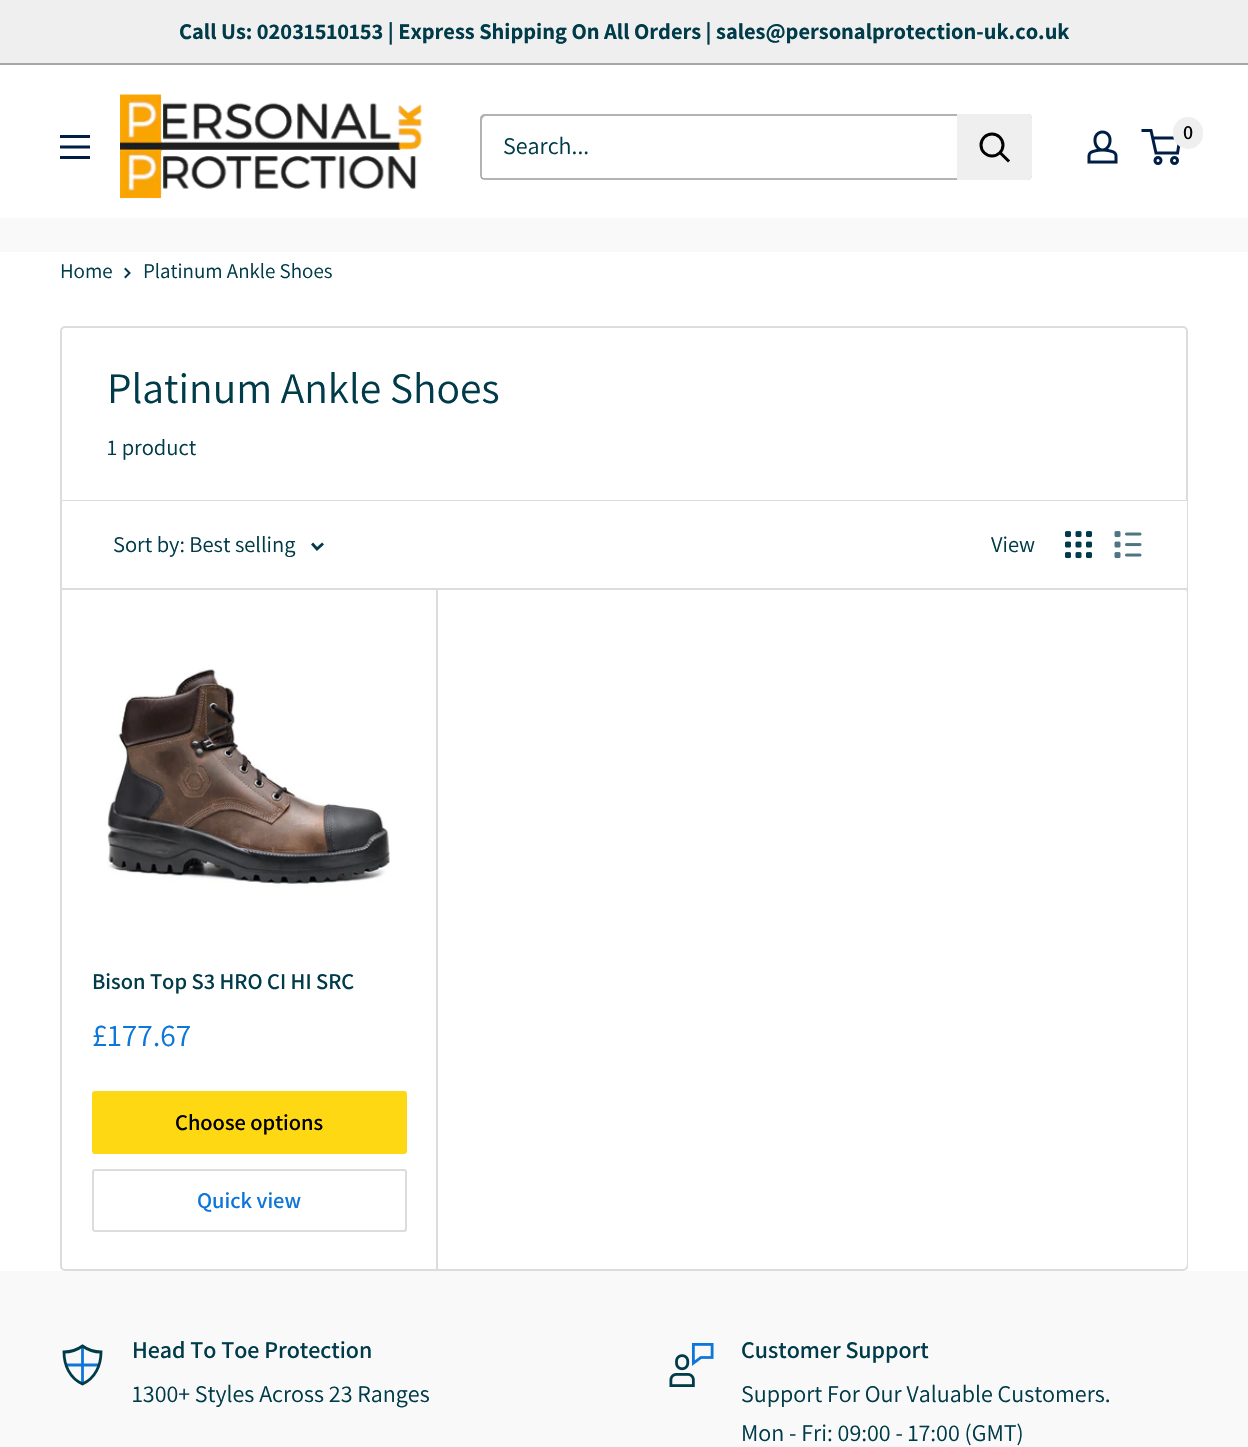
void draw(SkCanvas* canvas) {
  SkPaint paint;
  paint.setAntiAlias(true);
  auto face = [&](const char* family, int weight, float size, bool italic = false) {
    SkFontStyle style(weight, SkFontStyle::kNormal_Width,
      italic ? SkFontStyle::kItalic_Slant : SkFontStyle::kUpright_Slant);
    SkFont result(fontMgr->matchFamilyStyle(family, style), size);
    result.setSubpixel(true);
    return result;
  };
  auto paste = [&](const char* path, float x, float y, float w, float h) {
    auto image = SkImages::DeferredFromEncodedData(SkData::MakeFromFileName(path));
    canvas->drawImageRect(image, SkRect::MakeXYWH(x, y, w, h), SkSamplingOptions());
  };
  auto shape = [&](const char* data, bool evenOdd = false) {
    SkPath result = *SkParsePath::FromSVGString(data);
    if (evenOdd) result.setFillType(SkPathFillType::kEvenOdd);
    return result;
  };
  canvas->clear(0xfff9f9f9);
  {
    const struct { float x, y, w, h; SkColor color; } items[] = {
      {0, 0, 1248, 63, 0xffefefef},
      {0, 63, 1248, 2, 0xffa7a7a7},
      {0, 65, 1248, 153, 0xffffffff},
    };
    for (auto [x, y, w, h, color] : items) {
      paint.setColor(color);
      canvas->drawRect(SkRect::MakeXYWH(x, y, w, h), paint);
    }
  }
  paste("img/1.png", 120, 94, 303, 105);
  paste("img/2.png", 1087, 130, 31, 34);
  paint.setStroke(true);
  paint.setStrokeWidth(3);
  paint.setColor(0xff001e45);
  canvas->drawCircle(1158, 160.5f, 3, paint);
  canvas->drawCircle(1174.5f, 160.5f, 3, paint);
  canvas->drawPath(shape("M1152.5 138H1180L1177.5 153H1156L1151 130.5H1141.5"), paint);
  paint.setStroke(false);
  paint.setColor(0xffefefef);
  canvas->drawRoundRect(SkRect::MakeXYWH(1173, 117, 30, 32), 15, 15, paint);
  paste("img/3.png", 60, 135, 30, 24);
  paint.setColor(0xffb3b3b3);
  canvas->drawPath(shape("M481 177C481 179 483 180 485 180H1027C1030 180 1032 178 1032 175V119C1032 117 1031 115 1029 115L1030 117V174C1030 176 1028 178 1026 178H483Z"), paint);
  paint.setColor(0x4d000000);
  canvas->drawPath(shape("M486 116H1029L1031 117C1031 115 1029 114 1027 114H485C482 114 480 116 480 119V175C480 177 481 179 483 179L482 177V120C482 118 484 116 486 116Z"), paint);
  paint.setColor(0xffefefef);
  canvas->drawPath(shape("M957 114H1027C1030 114 1032 116 1032 119V175C1032 178 1030 180 1027 180H957Z"), paint);
  paint.setStroke(true);
  paint.setStrokeCap(SkPaint::kSquare_Cap);
  paint.setColor(0xff000000);
  canvas->drawPath(shape("M1008 160.5L1000.5 153"), paint);
  paint.setStrokeCap(SkPaint::kButt_Cap);
  canvas->drawCircle(992, 145, 11, paint);
  paint.setStroke(false);
  paint.setColor(0xffffffff);
  canvas->drawRect(SkRect::MakeXYWH(0, 252, 1248, 1019), paint);
  paint.setStroke(true);
  paint.setStrokeWidth(2);
  paint.setStrokeCap(SkPaint::kSquare_Cap);
  paint.setColor(0xff003b49);
  canvas->drawPath(shape("M125.5 269L129.5 273L125.5 277"), paint);
  paint.setStrokeCap(SkPaint::kButt_Cap);
  paint.setColor(0xffdcdcdc);
  canvas->drawRoundRect(SkRect::MakeXYWH(61, 327, 1126, 943), 4, 4, paint);
  paint.setStroke(false);
  canvas->drawPath(shape("M62 500V501H1186V587H1187V500Z"), paint);
  paint.setColor(0xffffffff);
  canvas->drawRoundRect(SkRect::MakeXYWH(62, 588, 1125, 681), 5, 5, paint);
  paint.setColor(0xffdcdcdc);
  canvas->drawRect(SkRect::MakeXYWH(436, 588, 2, 681), paint);
  canvas->drawPath(shape("M62 588V590H1187V503H1186V588Z"), paint);
  paint.setColor(0xffffffff);
  canvas->drawRect(SkRect::MakeXYWH(1186, 501, 1, 87), paint);
  paint.setStroke(true);
  paint.setStrokeWidth(2.8f);
  paint.setStrokeCap(SkPaint::kSquare_Cap);
  paint.setColor(0xff003b49);
  canvas->drawPath(shape("M322 544.5L317 549L313 544.5"), paint);
  paste("img/4.png", 1065, 531, 27, 28);
  paste("img/5.png", 1114, 531, 28, 28);
  paste("img/6.png", 107, 668, 283, 219);
  paint.setStroke(false);
  paint.setColor(0xffffd814);
  canvas->drawRoundRect(SkRect::MakeXYWH(92, 1091, 315, 63), 3, 3, paint);
  paint.setStroke(true);
  paint.setStrokeWidth(2);
  paint.setStrokeCap(SkPaint::kButt_Cap);
  paint.setColor(0xffdcdcdc);
  canvas->drawRoundRect(SkRect::MakeXYWH(93, 1170, 313, 61), 2, 2, paint);
  paint.setStrokeWidth(2.8f);
  paint.setColor(0xff0d76d8);
  canvas->drawPath(shape("M82.5 1346V1384M99 1365H66"), paint);
  paint.setStrokeCap(SkPaint::kSquare_Cap);
  paint.setColor(0xff003b49);
  canvas->drawPath(shape("M82.5 1346C77 1350 69.5 1352 64 1352C64 1365 69.5 1378 82.5 1384C95.5 1378 101 1365 101 1352C95.5 1352 88 1350 82.5 1346Z"), paint);
  paste("img/7.png", 669, 1343, 45, 44);
  auto f0 = face("Assistant", 700, 22.5f);
  paint.setStroke(false);
  canvas->drawString("Call Us: 02031510153 | Express Shipping On All Orders | sales@personalprotection-uk.co.uk", 179, 39, f0, paint);
  auto f1 = face("Assistant", 600, 20);
  paint.setColor(0xff000000);
  canvas->drawString("0", 1183, 139, f1, paint);
  auto f2 = face("Assistant", 400, 24);
  paint.setColor(0xff003b49);
  canvas->drawString("Search...", 503, 154, f2, paint);
  auto f3 = face("Assistant", 400, 21);
  canvas->drawString("Home", 60, 278, f3, paint);
  canvas->drawString("Platinum Ankle Shoes", 143, 278, f3, paint);
  auto f4 = face("Assistant", 400, 43.5f);
  canvas->drawString("Platinum Ankle Shoes", 107, 403, f4, paint);
  auto f5 = face("Assistant", 400, 22.5f);
  {
    const struct { const char* s; float x, y; } items[] = {
      {"1 product", 107, 455},
      {"Sort by: Best selling", 113, 552},
      {"View", 991, 552},
    };
    for (auto [s, x, y] : items) {
      canvas->drawString(s, x, y, f5, paint);
    }
  }
  auto f6 = face("Assistant", 600, 22.5f);
  canvas->drawString("Bison Top S3 HRO CI HI SRC", 92, 989, f6, paint);
  auto f7 = face("Assistant", 400, 31.5f);
  paint.setColor(0xff0d76d8);
  canvas->drawString("£177.67", 92, 1046, f7, paint);
  paint.setColor(0xff000000);
  canvas->drawString("Choose options", 175, 1130, f6, paint);
  paint.setColor(0xff0d76d8);
  canvas->drawString("Quick view", 197, 1208, f6, paint);
  auto f8 = face("Assistant", 600, 24);
  paint.setColor(0xff003b49);
  canvas->drawString("Head To Toe Protection", 132, 1358, f8, paint);
  canvas->drawString("1300+ Styles Across 23 Ranges", 132, 1402, f2, paint);
  canvas->drawString("Customer Support", 741, 1358, f8, paint);
  canvas->drawString("Support For Our Valuable Customers.", 741, 1402, f2, paint);
  canvas->drawString("Mon - Fri: 09:00 - 17:00 (GMT)", 741, 1441, f2, paint);
}
